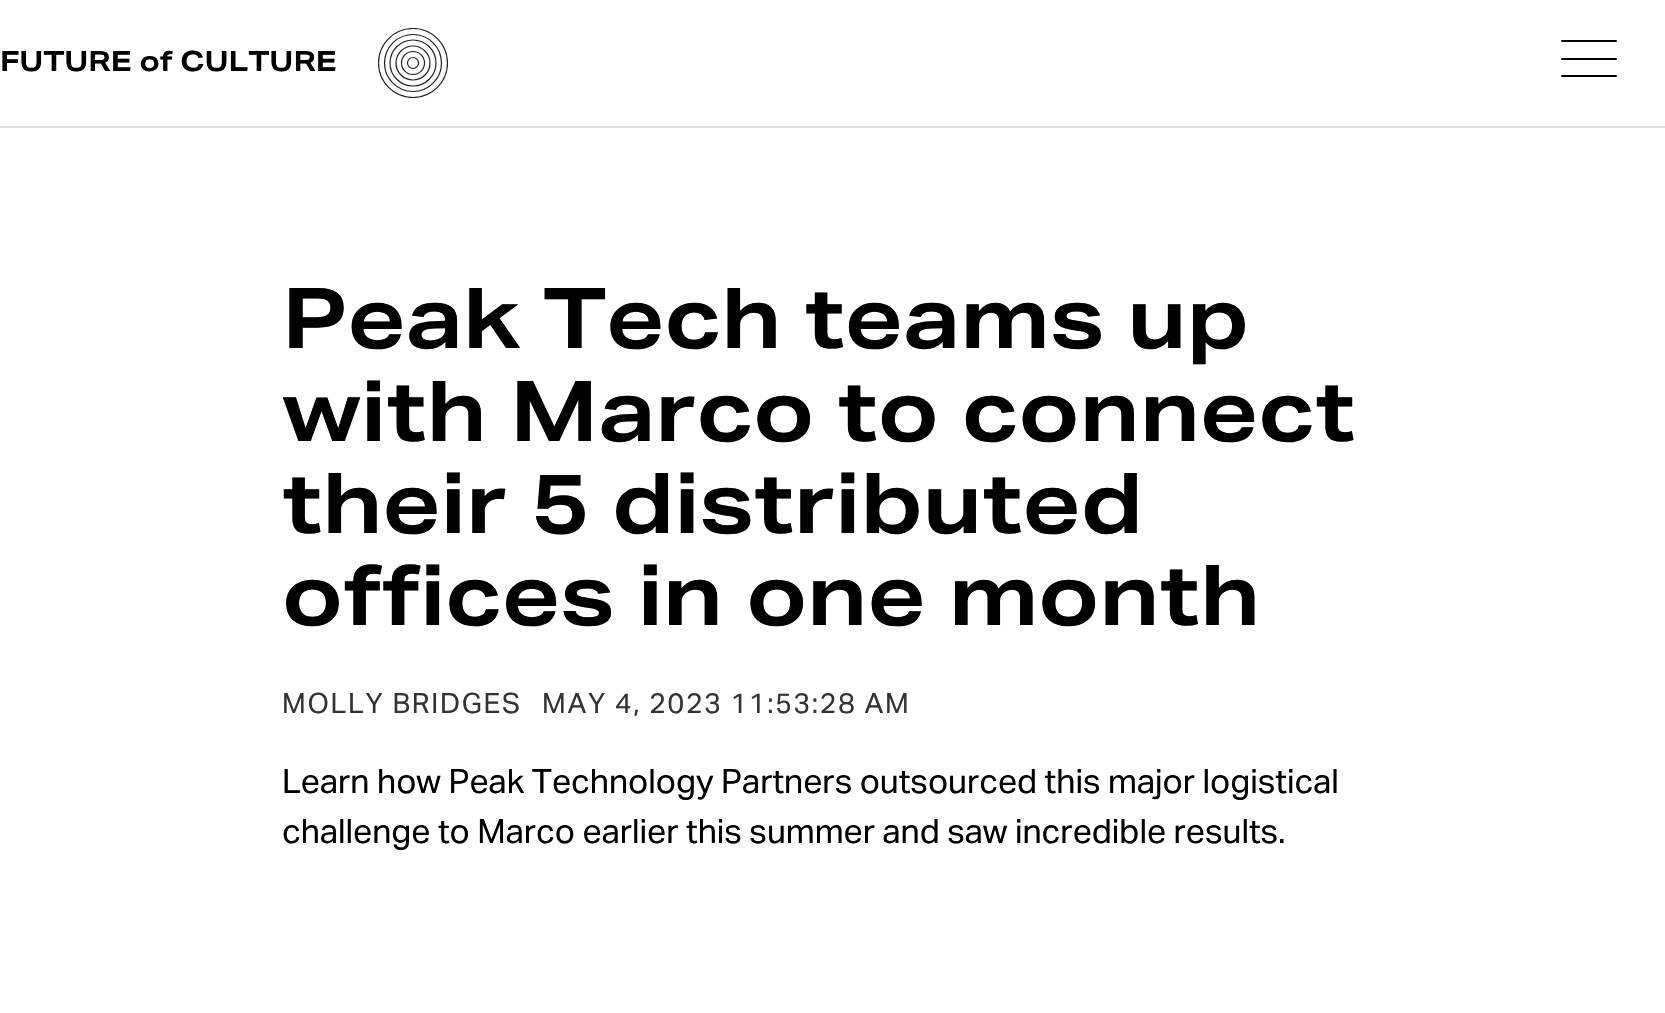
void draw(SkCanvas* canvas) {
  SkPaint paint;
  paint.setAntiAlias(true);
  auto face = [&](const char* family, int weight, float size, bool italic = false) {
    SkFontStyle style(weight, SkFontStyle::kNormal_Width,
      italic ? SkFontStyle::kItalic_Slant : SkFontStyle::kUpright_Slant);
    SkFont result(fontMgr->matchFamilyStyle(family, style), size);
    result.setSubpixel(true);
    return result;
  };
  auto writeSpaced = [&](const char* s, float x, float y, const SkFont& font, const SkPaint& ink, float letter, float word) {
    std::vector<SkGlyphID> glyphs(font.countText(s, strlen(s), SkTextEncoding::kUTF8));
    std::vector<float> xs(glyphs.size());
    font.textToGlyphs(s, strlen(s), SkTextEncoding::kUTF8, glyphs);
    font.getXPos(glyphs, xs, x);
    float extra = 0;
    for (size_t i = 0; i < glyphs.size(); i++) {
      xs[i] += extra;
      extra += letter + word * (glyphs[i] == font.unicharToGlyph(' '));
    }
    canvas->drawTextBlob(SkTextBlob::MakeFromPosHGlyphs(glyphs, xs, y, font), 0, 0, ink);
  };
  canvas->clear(0xffffffff);
  paint.setColor(0xffdfdbd2);
  canvas->drawRect(SkRect::MakeXYWH(0, 126, 1665, 2), paint);
  canvas->save();
  canvas->clipRect(SkRect::MakeXYWH(378, 28, 70, 70));
  paint.setStroke(true);
  paint.setStrokeWidth(1.2f);
  paint.setColor(0xff231f20);
  canvas->drawCircle(413, 63, 34.5f, paint);
  canvas->restore();
  canvas->drawCircle(413, 63, 28.5f, paint);
  canvas->drawCircle(413, 63, 23, paint);
  canvas->drawCircle(413, 63, 17, paint);
  canvas->drawCircle(413, 63, 11.5f, paint);
  canvas->drawCircle(413, 63, 5.5f, paint);
  paint.setStroke(false);
  paint.setColor(0xff000000);
  canvas->drawRoundRect(SkRect::MakeXYWH(1561, 58, 56, 2), 1, 1, paint);
  canvas->drawRoundRect(SkRect::MakeXYWH(1561, 40, 56, 2), 1, 1, paint);
  canvas->drawRoundRect(SkRect::MakeXYWH(1561, 75, 56, 2), 1, 1, paint);
  auto f0 = face("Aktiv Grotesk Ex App", 700, 28);
  canvas->drawString("FUTURE of CULTURE", 0, 71, f0, paint);
  auto f1 = face("Aktiv Grotesk Ex App", 700, 84);
  {
    const struct { const char* s; float x, y; } items[] = {
      {"Peak Tech teams up", 282, 348},
      {"with Marco to connect", 282, 441},
      {"their 5 distributed", 282, 533},
      {"offices in one month", 282, 625},
    };
    for (auto [s, x, y] : items) {
      canvas->drawString(s, x, y, f1, paint);
    }
  }
  auto f2 = face("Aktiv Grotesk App", 400, 28);
  paint.setColor(0xff333333);
  writeSpaced("MOLLY BRIDGES", 282, 713, f2, paint, 1.75f, 0);
  writeSpaced("MAY 4, 2023 11:53:28 AM", 542, 713, f2, paint, 1.75f, 0);
  auto f3 = face("Aktiv Grotesk App", 400, 33.6f);
  paint.setColor(0xff000000);
  canvas->drawString("Learn how Peak Technology Partners outsourced this major logistical", 282, 793, f3, paint);
  canvas->drawString("challenge to Marco earlier this summer and saw incredible results.", 282, 843, f3, paint);
}
